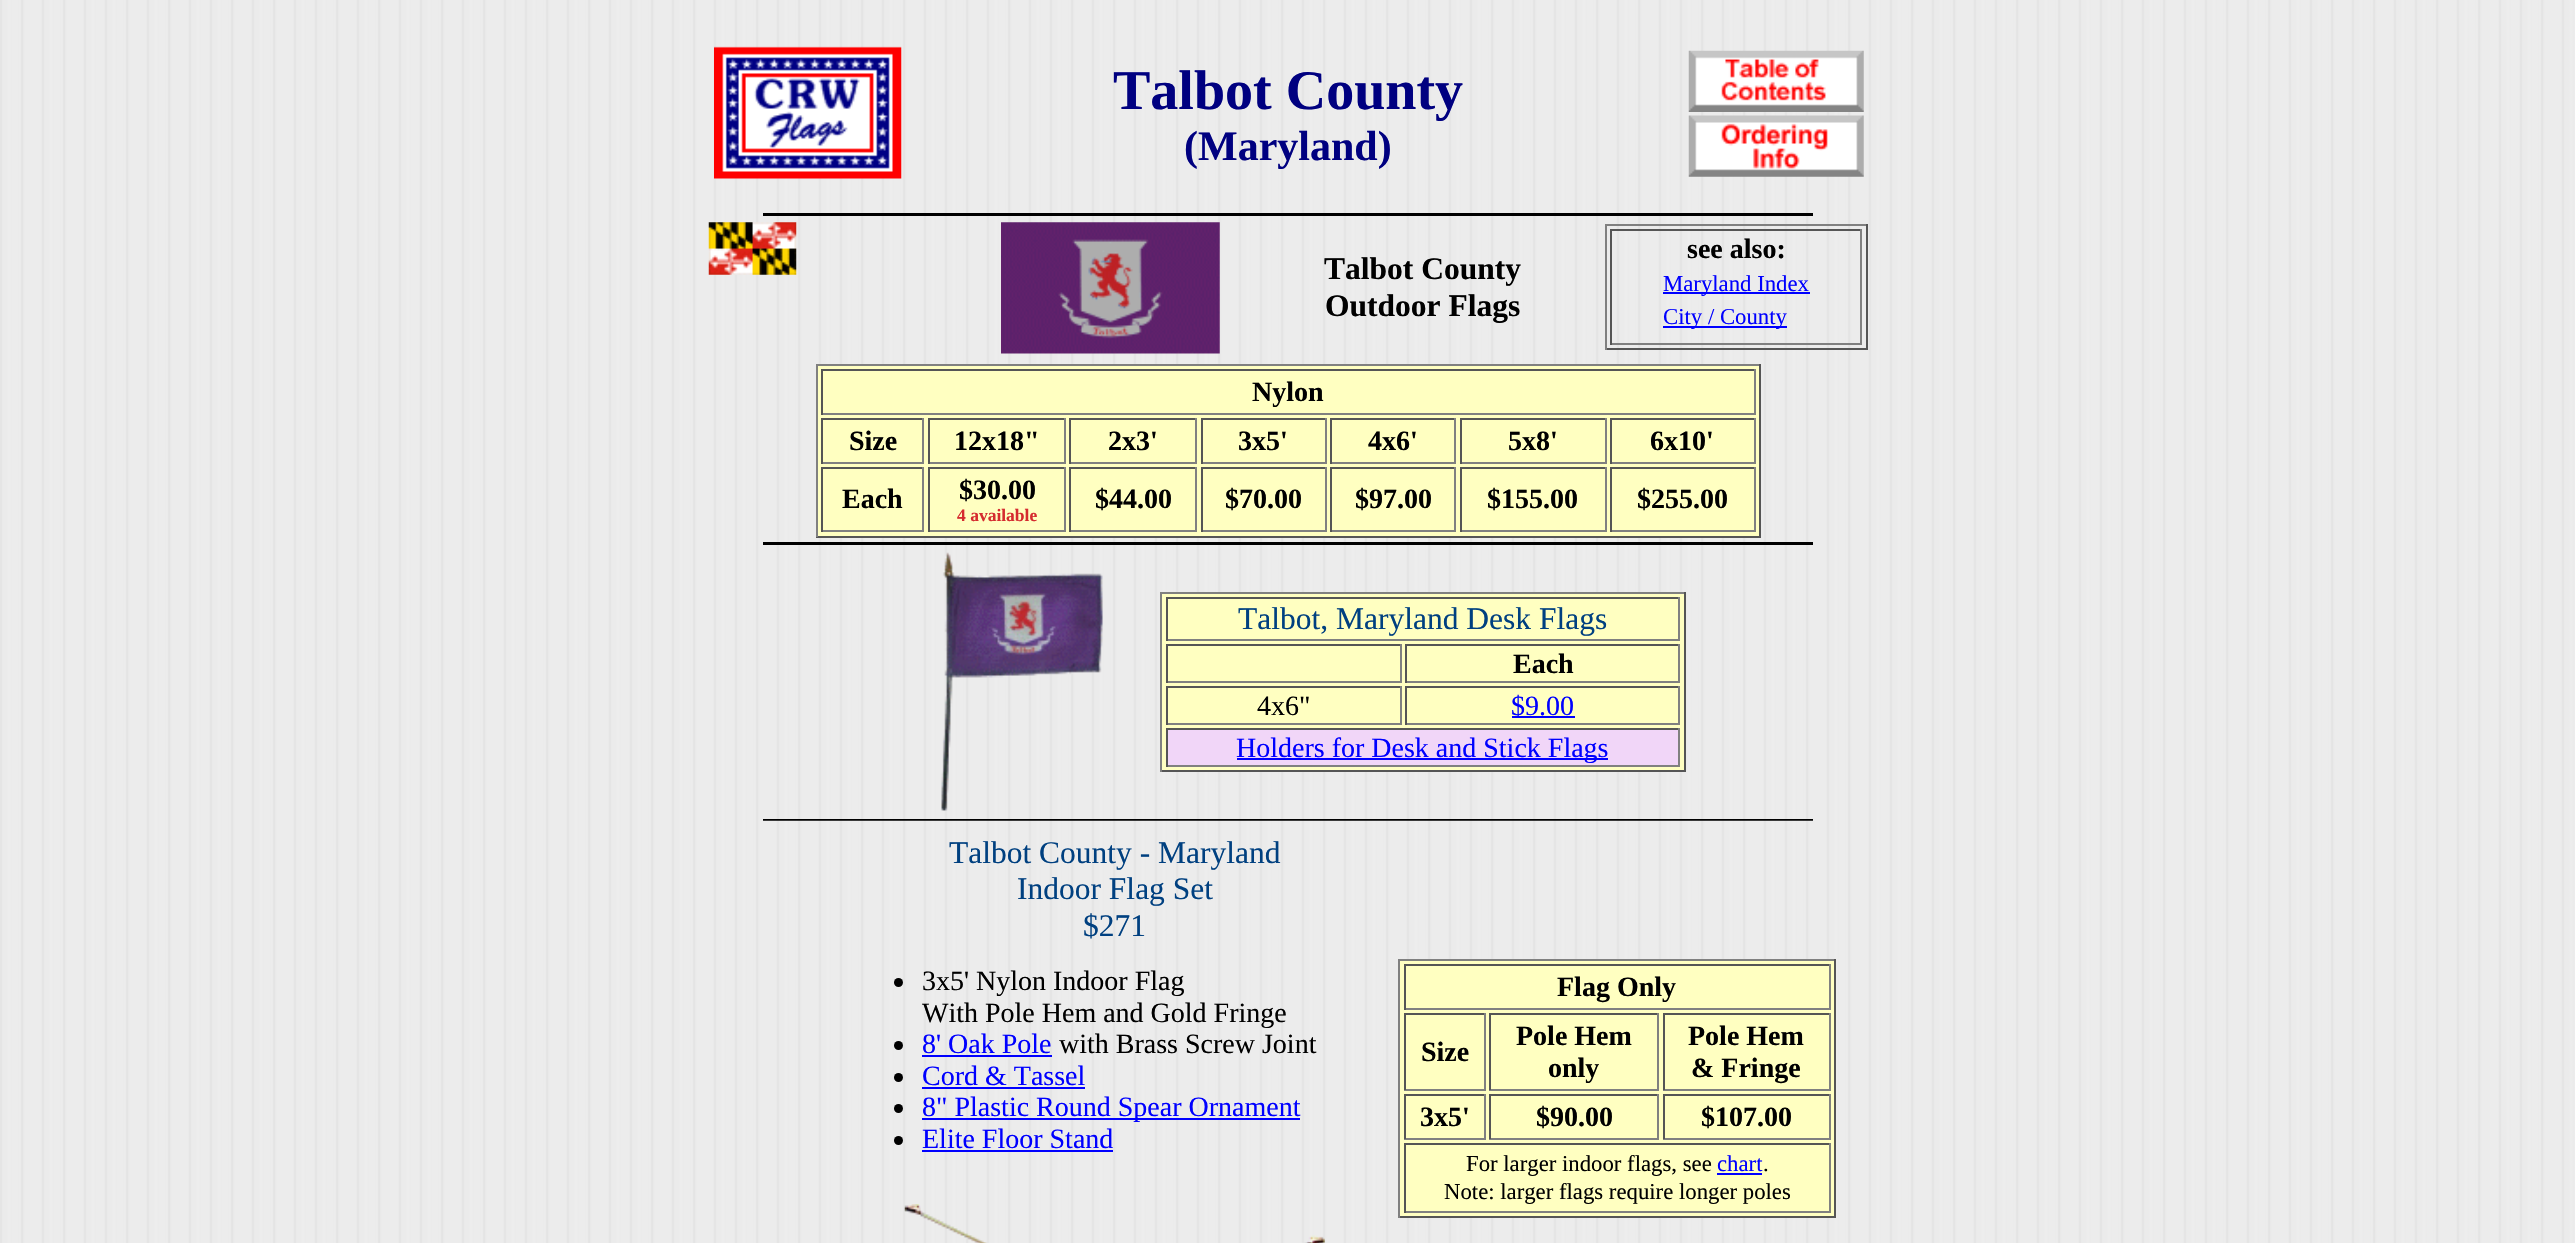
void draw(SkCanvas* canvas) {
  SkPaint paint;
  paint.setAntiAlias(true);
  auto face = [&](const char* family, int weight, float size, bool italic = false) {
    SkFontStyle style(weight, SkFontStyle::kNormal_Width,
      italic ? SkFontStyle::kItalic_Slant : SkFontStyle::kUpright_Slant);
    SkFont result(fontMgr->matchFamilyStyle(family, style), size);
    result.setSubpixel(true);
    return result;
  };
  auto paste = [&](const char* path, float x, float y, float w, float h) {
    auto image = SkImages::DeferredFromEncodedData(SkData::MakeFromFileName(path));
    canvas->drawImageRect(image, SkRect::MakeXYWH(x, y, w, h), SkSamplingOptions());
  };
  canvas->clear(0xffffffff);
  paste("img/1.png", 0, 0, 2575, 1243);
  paste("img/2.png", 714, 46, 188, 133);
  paste("img/3.png", 1688, 50, 176, 62);
  paste("img/4.png", 1688, 115, 176, 62);
  paint.setColor(0xff000000);
  canvas->drawRect(SkRect::MakeXYWH(763, 213, 1050, 3), paint);
  paste("img/5.png", 708, 222, 89, 53);
  paste("img/6.png", 1001, 222, 219, 132);
  {
    const struct { float x, y, w, h; SkColor color; } items[] = {
      {1605, 224, 262, 2, 0xff808080},
      {1866, 224, 2, 126, 0xff555555},
      {1605, 348, 262, 2, 0xff555555},
      {1605, 224, 2, 126, 0xff808080},
      {1610, 229, 252, 2, 0xff555555},
      {1860, 229, 2, 116, 0xff808080},
      {1610, 343, 252, 2, 0xff808080},
      {1610, 229, 2, 116, 0xff555555},
      {1663, 292, 147, 2, 0xff0000ff},
      {1663, 326, 124, 2, 0xff0000ff},
      {818, 366, 941, 170, 0xffffffc1},
      {816, 364, 945, 2, 0xff808080},
      {1759, 364, 2, 173, 0xff555555},
      {816, 536, 945, 2, 0xff555555},
      {816, 364, 2, 173, 0xff808080},
      {821, 369, 934, 2, 0xff555555},
      {1754, 369, 2, 46, 0xff808080},
      {821, 413, 934, 2, 0xff808080},
      {821, 369, 2, 46, 0xff555555},
      {821, 418, 103, 2, 0xff555555},
      {922, 418, 2, 46, 0xff808080},
      {821, 462, 103, 2, 0xff808080},
      {821, 418, 2, 46, 0xff555555},
      {928, 418, 138, 2, 0xff555555},
      {1064, 418, 2, 46, 0xff808080},
      {928, 462, 138, 2, 0xff808080},
      {928, 418, 2, 46, 0xff555555},
      {1069, 418, 128, 2, 0xff555555},
      {1195, 418, 2, 46, 0xff808080},
      {1069, 462, 128, 2, 0xff808080},
      {1069, 418, 2, 46, 0xff555555},
      {1201, 418, 126, 2, 0xff555555},
      {1325, 418, 2, 46, 0xff808080},
      {1201, 462, 126, 2, 0xff808080},
      {1201, 418, 2, 46, 0xff555555},
      {1330, 418, 126, 2, 0xff555555},
      {1454, 418, 2, 46, 0xff808080},
      {1330, 462, 126, 2, 0xff808080},
      {1330, 418, 2, 46, 0xff555555},
      {1460, 418, 147, 2, 0xff555555},
      {1605, 418, 2, 46, 0xff808080},
      {1460, 462, 147, 2, 0xff808080},
      {1460, 418, 2, 46, 0xff555555},
      {1610, 418, 145, 2, 0xff555555},
      {1754, 418, 2, 46, 0xff808080},
      {1610, 462, 145, 2, 0xff808080},
      {1610, 418, 2, 46, 0xff555555},
      {821, 467, 103, 2, 0xff555555},
      {922, 467, 2, 65, 0xff808080},
      {821, 530, 103, 2, 0xff808080},
      {821, 467, 2, 65, 0xff555555},
      {928, 467, 138, 2, 0xff555555},
      {1064, 467, 2, 65, 0xff808080},
      {928, 530, 138, 2, 0xff808080},
      {928, 467, 2, 65, 0xff555555},
      {1069, 467, 128, 2, 0xff555555},
      {1195, 467, 2, 65, 0xff808080},
      {1069, 530, 128, 2, 0xff808080},
      {1069, 467, 2, 65, 0xff555555},
      {1201, 467, 126, 2, 0xff555555},
      {1325, 467, 2, 65, 0xff808080},
      {1201, 530, 126, 2, 0xff808080},
      {1201, 467, 2, 65, 0xff555555},
      {1330, 467, 126, 2, 0xff555555},
      {1454, 467, 2, 65, 0xff808080},
      {1330, 530, 126, 2, 0xff808080},
      {1330, 467, 2, 65, 0xff555555},
      {1460, 467, 147, 2, 0xff555555},
      {1605, 467, 2, 65, 0xff808080},
      {1460, 530, 147, 2, 0xff808080},
      {1460, 467, 2, 65, 0xff555555},
      {1610, 467, 145, 2, 0xff555555},
      {1754, 467, 2, 65, 0xff808080},
      {1610, 530, 145, 2, 0xff808080},
      {1610, 467, 2, 65, 0xff555555},
      {763, 542, 1050, 3, 0xff000000},
    };
    for (auto [x, y, w, h, color] : items) {
      paint.setColor(color);
      canvas->drawRect(SkRect::MakeXYWH(x, y, w, h), paint);
    }
  }
  paste("img/7.png", 941, 552, 162, 259);
  {
    const struct { float x, y, w, h; SkColor color; } items[] = {
      {1162, 594, 522, 176, 0xffffffc1},
      {1160, 592, 525, 2, 0xff808080},
      {1684, 592, 2, 180, 0xff555555},
      {1160, 770, 525, 2, 0xff555555},
      {1160, 592, 2, 180, 0xff808080},
      {1166, 597, 514, 2, 0xff555555},
      {1678, 597, 2, 44, 0xff808080},
      {1166, 639, 514, 2, 0xff808080},
      {1166, 597, 2, 44, 0xff555555},
      {1166, 644, 236, 2, 0xff555555},
      {1400, 644, 2, 39, 0xff808080},
      {1166, 681, 236, 2, 0xff808080},
      {1166, 644, 2, 39, 0xff555555},
      {1405, 644, 275, 2, 0xff555555},
      {1678, 644, 2, 39, 0xff808080},
      {1405, 681, 275, 2, 0xff808080},
      {1405, 644, 2, 39, 0xff555555},
      {1166, 686, 236, 2, 0xff555555},
      {1400, 686, 2, 39, 0xff808080},
      {1166, 723, 236, 2, 0xff808080},
      {1166, 686, 2, 39, 0xff555555},
      {1405, 686, 275, 2, 0xff555555},
      {1678, 686, 2, 39, 0xff808080},
      {1405, 723, 275, 2, 0xff808080},
      {1405, 686, 2, 39, 0xff555555},
      {1512, 716, 63, 2, 0xff0000ff},
      {1168, 730, 510, 35, 0xfff1d6f8},
      {1166, 728, 514, 2, 0xff555555},
      {1678, 728, 2, 39, 0xff808080},
      {1166, 765, 514, 2, 0xff808080},
      {1166, 728, 2, 39, 0xff555555},
      {1237, 758, 371, 2, 0xff0000ff},
    };
    for (auto [x, y, w, h, color] : items) {
      paint.setColor(color);
      canvas->drawRect(SkRect::MakeXYWH(x, y, w, h), paint);
    }
  }
  paste("img/8.png", 763, 819, 1050, 2);
  {
    const struct { float x, y, w, h; SkColor color; } items[] = {
      {1400, 961, 434, 255, 0xffffffc1},
      {1398, 959, 438, 2, 0xff808080},
      {1834, 959, 2, 259, 0xff555555},
      {1398, 1216, 438, 2, 0xff555555},
      {1398, 959, 2, 259, 0xff808080},
      {1404, 964, 427, 2, 0xff555555},
      {1829, 964, 2, 46, 0xff808080},
      {1404, 1008, 427, 2, 0xff808080},
      {1404, 964, 2, 46, 0xff555555},
      {1404, 1013, 82, 2, 0xff555555},
      {1484, 1013, 2, 77, 0xff808080},
      {1404, 1089, 82, 2, 0xff808080},
      {1404, 1013, 2, 77, 0xff555555},
      {1489, 1013, 170, 2, 0xff555555},
      {1657, 1013, 2, 77, 0xff808080},
      {1489, 1089, 170, 2, 0xff808080},
      {1489, 1013, 2, 77, 0xff555555},
      {1663, 1013, 168, 2, 0xff555555},
      {1829, 1013, 2, 77, 0xff808080},
      {1663, 1089, 168, 2, 0xff808080},
      {1663, 1013, 2, 77, 0xff555555},
      {1404, 1094, 82, 2, 0xff555555},
      {1484, 1094, 2, 45, 0xff808080},
      {1404, 1138, 82, 2, 0xff808080},
      {1404, 1094, 2, 45, 0xff555555},
      {1489, 1094, 170, 2, 0xff555555},
      {1657, 1094, 2, 45, 0xff808080},
      {1489, 1138, 170, 2, 0xff808080},
      {1489, 1094, 2, 45, 0xff555555},
      {1663, 1094, 168, 2, 0xff555555},
      {1829, 1094, 2, 45, 0xff808080},
      {1663, 1138, 168, 2, 0xff808080},
      {1663, 1094, 2, 45, 0xff555555},
      {1404, 1143, 427, 2, 0xff555555},
      {1829, 1143, 2, 70, 0xff808080},
      {1404, 1211, 427, 2, 0xff808080},
      {1404, 1143, 2, 70, 0xff555555},
      {1717, 1173, 45, 2, 0xff0000ff},
    };
    for (auto [x, y, w, h, color] : items) {
      paint.setColor(color);
      canvas->drawRect(SkRect::MakeXYWH(x, y, w, h), paint);
    }
  }
  paint.setColor(0xff000000);
  canvas->drawCircle(898.5f, 982.5f, 4.5f, paint);
  canvas->drawCircle(898.5f, 1045.5f, 4.5f, paint);
  paint.setColor(0xff0000ff);
  canvas->drawRect(SkRect::MakeXYWH(922, 1055, 130, 2), paint);
  paint.setColor(0xff000000);
  canvas->drawCircle(898.5f, 1077.5f, 4.5f, paint);
  paint.setColor(0xff0000ff);
  canvas->drawRect(SkRect::MakeXYWH(922, 1087, 163, 2), paint);
  paint.setColor(0xff000000);
  canvas->drawCircle(898.5f, 1108.5f, 4.5f, paint);
  paint.setColor(0xff0000ff);
  canvas->drawRect(SkRect::MakeXYWH(922, 1118, 378, 2), paint);
  paint.setColor(0xff000000);
  canvas->drawCircle(898.5f, 1140.5f, 4.5f, paint);
  paint.setColor(0xff0000ff);
  canvas->drawRect(SkRect::MakeXYWH(922, 1150, 191, 2), paint);
  paste("img/9.png", 904, 1204, 421, 39);
  auto f0 = face("Liberation Serif", 700, 56);
  paint.setColor(0xff000080);
  canvas->drawString("Talbot County", 1113, 109, f0, paint);
  auto f1 = face("Liberation Serif", 700, 42);
  canvas->drawString("(Maryland)", 1184, 160, f1, paint);
  auto f2 = face("Liberation Serif", 700, 31.5f);
  paint.setColor(0xff000000);
  canvas->drawString("Talbot County", 1324, 279, f2, paint);
  canvas->drawString("Outdoor Flags", 1325, 316, f2, paint);
  auto f3 = face("Liberation Serif", 700, 28);
  canvas->drawString("see also:", 1687, 258, f3, paint);
  auto f4 = face("Liberation Serif", 400, 22.75f);
  paint.setColor(0xff0000ff);
  canvas->drawString("Maryland Index", 1663, 291, f4, paint);
  canvas->drawString("City / County", 1663, 324, f4, paint);
  paint.setColor(0xff000000);
  {
    const struct { const char* s; float x, y; } items[] = {
      {"Nylon", 1252, 401},
      {"Size", 849, 450},
      {"12x18\"", 954, 450},
      {"2x3'", 1108, 450},
      {"3x5'", 1238, 450},
      {"4x6'", 1368, 450},
      {"5x8'", 1508, 450},
      {"6x10'", 1650, 450},
      {"Each", 842, 508},
      {"$30.00", 959, 499},
    };
    for (auto [s, x, y] : items) {
      canvas->drawString(s, x, y, f3, paint);
    }
  }
  auto f5 = face("Liberation Serif", 700, 17.5f);
  paint.setColor(0xffd52b2f);
  canvas->drawString("4 available", 957, 521, f5, paint);
  paint.setColor(0xff000000);
  {
    const struct { const char* s; float x, y; } items[] = {
      {"$44.00", 1095, 508},
      {"$70.00", 1225, 508},
      {"$97.00", 1355, 508},
      {"$155.00", 1487, 508},
      {"$255.00", 1637, 508},
    };
    for (auto [s, x, y] : items) {
      canvas->drawString(s, x, y, f3, paint);
    }
  }
  auto f6 = face("Liberation Serif", 400, 31.5f);
  paint.setColor(0xff004080);
  canvas->drawString("Talbot, Maryland Desk Flags", 1238, 629, f6, paint);
  paint.setColor(0xff000000);
  canvas->drawString("Each", 1513, 673, f3, paint);
  auto f7 = face("Liberation Serif", 400, 28);
  canvas->drawString("4x6\"", 1257, 715, f7, paint);
  paint.setColor(0xff0000ff);
  canvas->drawString("$9.00", 1511, 715, f7, paint);
  canvas->drawString("Holders for Desk and Stick Flags", 1236, 757, f7, paint);
  paint.setColor(0xff004080);
  {
    const struct { const char* s; float x, y; } items[] = {
      {"Talbot County - Maryland", 949, 863},
      {"Indoor Flag Set", 1017, 899},
      {"$271", 1083, 936},
    };
    for (auto [s, x, y] : items) {
      canvas->drawString(s, x, y, f6, paint);
    }
  }
  paint.setColor(0xff000000);
  {
    const struct { const char* s; float x, y; } items[] = {
      {"Flag Only", 1557, 996},
      {"Size", 1421, 1061},
      {"Pole Hem", 1516, 1045},
      {"only", 1548, 1077},
      {"Pole Hem", 1688, 1045},
      {"& Fringe", 1691, 1077},
      {"3x5'", 1420, 1126},
      {"$90.00", 1536, 1126},
      {"$107.00", 1701, 1126},
    };
    for (auto [s, x, y] : items) {
      canvas->drawString(s, x, y, f3, paint);
    }
  }
  canvas->drawString("For larger indoor flags, see", 1466, 1171, f4, paint);
  paint.setColor(0xff0000ff);
  canvas->drawString("chart", 1717, 1171, f4, paint);
  paint.setColor(0xff000000);
  canvas->drawString(".", 1763, 1171, f4, paint);
  canvas->drawString("Note: larger flags require longer poles", 1444, 1199, f4, paint);
  canvas->drawString("3x5' Nylon Indoor Flag", 922, 990, f7, paint);
  canvas->drawString("With Pole Hem and Gold Fringe", 922, 1022, f7, paint);
  paint.setColor(0xff0000ff);
  canvas->drawString("8' Oak Pole", 922, 1053, f7, paint);
  paint.setColor(0xff000000);
  canvas->drawString("with Brass Screw Joint", 1059, 1053, f7, paint);
  paint.setColor(0xff0000ff);
  {
    const struct { const char* s; float x, y; } items[] = {
      {"Cord & Tassel", 922, 1085},
      {"8\" Plastic Round Spear Ornament", 922, 1116},
      {"Elite Floor Stand", 922, 1148},
    };
    for (auto [s, x, y] : items) {
      canvas->drawString(s, x, y, f7, paint);
    }
  }
}
